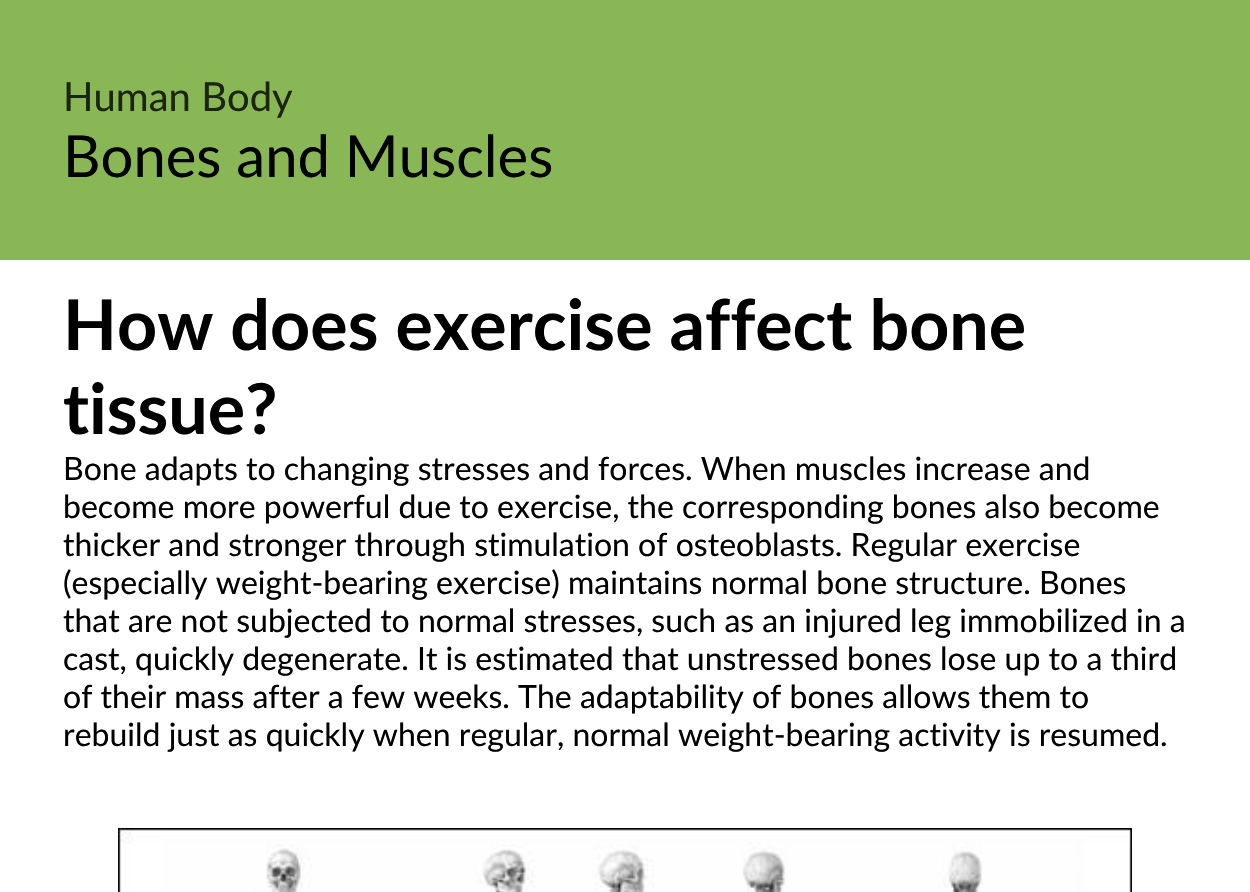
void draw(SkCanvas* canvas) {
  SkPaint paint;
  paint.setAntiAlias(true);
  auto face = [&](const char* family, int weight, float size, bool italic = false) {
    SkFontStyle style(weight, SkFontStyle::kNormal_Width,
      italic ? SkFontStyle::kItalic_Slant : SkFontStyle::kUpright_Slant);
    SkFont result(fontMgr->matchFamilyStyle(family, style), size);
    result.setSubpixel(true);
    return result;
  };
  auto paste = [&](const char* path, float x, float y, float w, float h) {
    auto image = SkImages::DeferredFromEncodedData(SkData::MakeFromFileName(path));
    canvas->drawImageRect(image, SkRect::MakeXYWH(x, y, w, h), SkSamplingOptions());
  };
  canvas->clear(0xffffffff);
  paint.setColor(0xff89b755);
  canvas->drawRect(SkRect::MakeXYWH(0, 0, 1250, 260), paint);
  paste("img/1.png", 118, 828, 1014, 64);
  auto f0 = face("Lato", 400, 40);
  paint.setColor(0xff1b2511);
  canvas->drawString("Human Body", 63, 111, f0, paint);
  auto f1 = face("Lato", 400, 58);
  paint.setColor(0xff000000);
  canvas->drawString("Bones and Muscles", 63, 177, f1, paint);
  auto f2 = face("Lato", 700, 70);
  canvas->drawString("How does exercise affect bone", 63, 350, f2, paint);
  canvas->drawString("tissue?", 63, 434, f2, paint);
  auto f3 = face("Lato", 400, 32);
  {
    const struct { const char* s; float x, y; } items[] = {
      {"Bone adapts to changing stresses and forces. When muscles increase and", 63, 480},
      {"become more powerful due to exercise, the corresponding bones also become", 63, 518},
      {"thicker and stronger through stimulation of osteoblasts. Regular exercise", 63, 556},
      {"(especially weight-bearing exercise) maintains normal bone structure. Bones", 63, 594},
      {"that are not subjected to normal stresses, such as an injured leg immobilized in a", 63, 632},
      {"cast, quickly degenerate. It is estimated that unstressed bones lose up to a third", 63, 670},
      {"of their mass after a few weeks. The adaptability of bones allows them to", 63, 708},
      {"rebuild just as quickly when regular, normal weight-bearing activity is resumed.", 63, 746},
    };
    for (auto [s, x, y] : items) {
      canvas->drawString(s, x, y, f3, paint);
    }
  }
}
